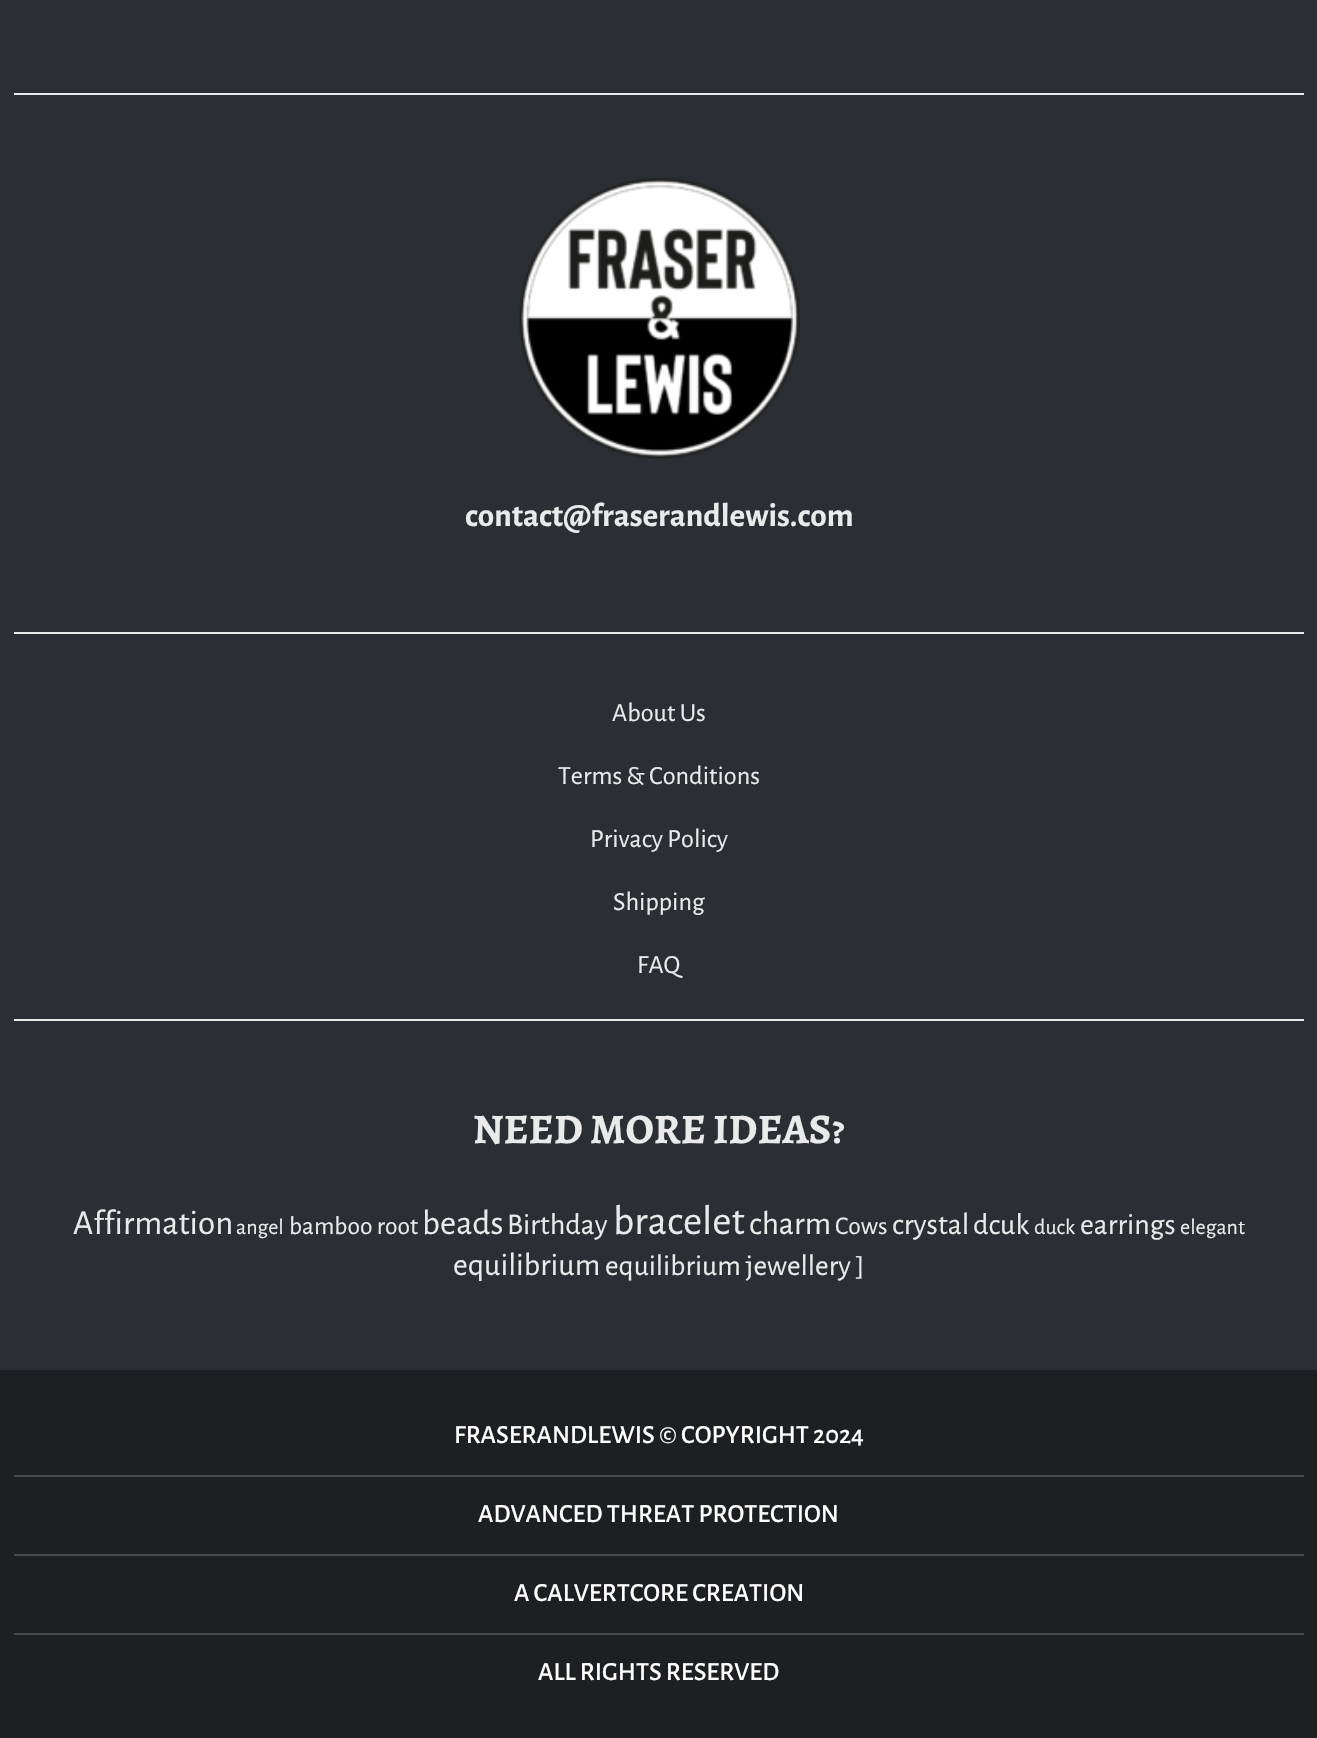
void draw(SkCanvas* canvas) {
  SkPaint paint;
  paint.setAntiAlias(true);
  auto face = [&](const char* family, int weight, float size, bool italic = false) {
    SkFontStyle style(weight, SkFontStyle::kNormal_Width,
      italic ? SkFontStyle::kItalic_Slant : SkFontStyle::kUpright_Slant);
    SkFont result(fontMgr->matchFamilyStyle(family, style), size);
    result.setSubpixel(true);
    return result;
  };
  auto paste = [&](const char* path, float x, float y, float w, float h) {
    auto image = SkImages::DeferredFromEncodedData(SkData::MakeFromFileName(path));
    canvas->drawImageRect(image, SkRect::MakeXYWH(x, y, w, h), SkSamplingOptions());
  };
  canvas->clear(0xff2b2e32);
  paint.setColor(0xffeaeaea);
  canvas->drawRect(SkRect::MakeXYWH(14, 93, 1290, 2), paint);
  canvas->drawRect(SkRect::MakeXYWH(14, 632, 1290, 2), paint);
  paste("img/1.png", 519, 178, 281, 281);
  {
    const struct { float x, y, w, h; SkColor color; } items[] = {
      {14, 1019, 1290, 2, 0xffeaeaea},
      {0, 1370, 1317, 368, 0xff1d1f22},
      {14, 1475, 1290, 2, 0xff494949},
      {14, 1554, 1290, 2, 0xff494949},
      {14, 1633, 1290, 2, 0xff494949},
    };
    for (auto [x, y, w, h, color] : items) {
      paint.setColor(color);
      canvas->drawRect(SkRect::MakeXYWH(x, y, w, h), paint);
    }
  }
  auto f0 = face("Alegreya Sans", 700, 33.25f);
  paint.setColor(0xffeaeaea);
  canvas->drawString("contact@fraserandlewis.com", 465, 526, f0, paint);
  auto f1 = face("Alegreya Sans", 400, 26.25f);
  {
    const struct { const char* s; float x, y; } items[] = {
      {"About Us", 612, 721},
      {"Terms & Conditions", 558, 784},
      {"Privacy Policy", 590, 847},
      {"Shipping", 613, 910},
      {"FAQ", 637, 973},
    };
    for (auto [s, x, y] : items) {
      canvas->drawString(s, x, y, f1, paint);
    }
  }
  auto f2 = face("Alegreya SC", 700, 42);
  canvas->drawString("NEED MORE IDEAS?", 473, 1143, f2, paint);
  auto f3 = face("Alegreya Sans", 400, 35);
  canvas->drawString("Affirmation", 73, 1234, f3, paint);
  auto f4 = face("Alegreya Sans", 400, 22);
  canvas->drawString("angel", 236, 1234, f4, paint);
  auto f5 = face("Alegreya Sans", 400, 25.5f);
  canvas->drawString("bamboo root", 289, 1234, f5, paint);
  canvas->drawString("beads", 422, 1234, f3, paint);
  auto f6 = face("Alegreya Sans", 400, 30);
  canvas->drawString("Birthday", 507, 1234, f6, paint);
  auto f7 = face("Alegreya Sans", 400, 41.5f);
  canvas->drawString("bracelet", 613, 1234, f7, paint);
  auto f8 = face("Alegreya Sans", 400, 33);
  canvas->drawString("charm", 749, 1234, f8, paint);
  canvas->drawString("Cows", 835, 1234, f5, paint);
  auto f9 = face("Alegreya Sans", 400, 30.5f);
  canvas->drawString("crystal", 892, 1234, f9, paint);
  canvas->drawString("dcuk", 973, 1234, f6, paint);
  canvas->drawString("duck", 1034, 1234, f4, paint);
  canvas->drawString("earrings", 1080, 1234, f6, paint);
  canvas->drawString("elegant", 1180, 1234, f4, paint);
  auto f10 = face("Alegreya Sans", 400, 32);
  canvas->drawString("equilibrium", 453, 1275, f10, paint);
  auto f11 = face("Alegreya Sans", 400, 29.5f);
  canvas->drawString("equilibrium jewellery ]", 605, 1275, f11, paint);
  auto f12 = face("Alegreya Sans", 500, 26.25f);
  paint.setColor(0xffffffff);
  {
    const struct { const char* s; float x, y; } items[] = {
      {"FRASERANDLEWIS © COPYRIGHT 2024", 454, 1443},
      {"ADVANCED THREAT PROTECTION", 478, 1522},
      {"A CALVERTCORE CREATION", 514, 1601},
      {"ALL RIGHTS RESERVED", 538, 1680},
    };
    for (auto [s, x, y] : items) {
      canvas->drawString(s, x, y, f12, paint);
    }
  }
}
